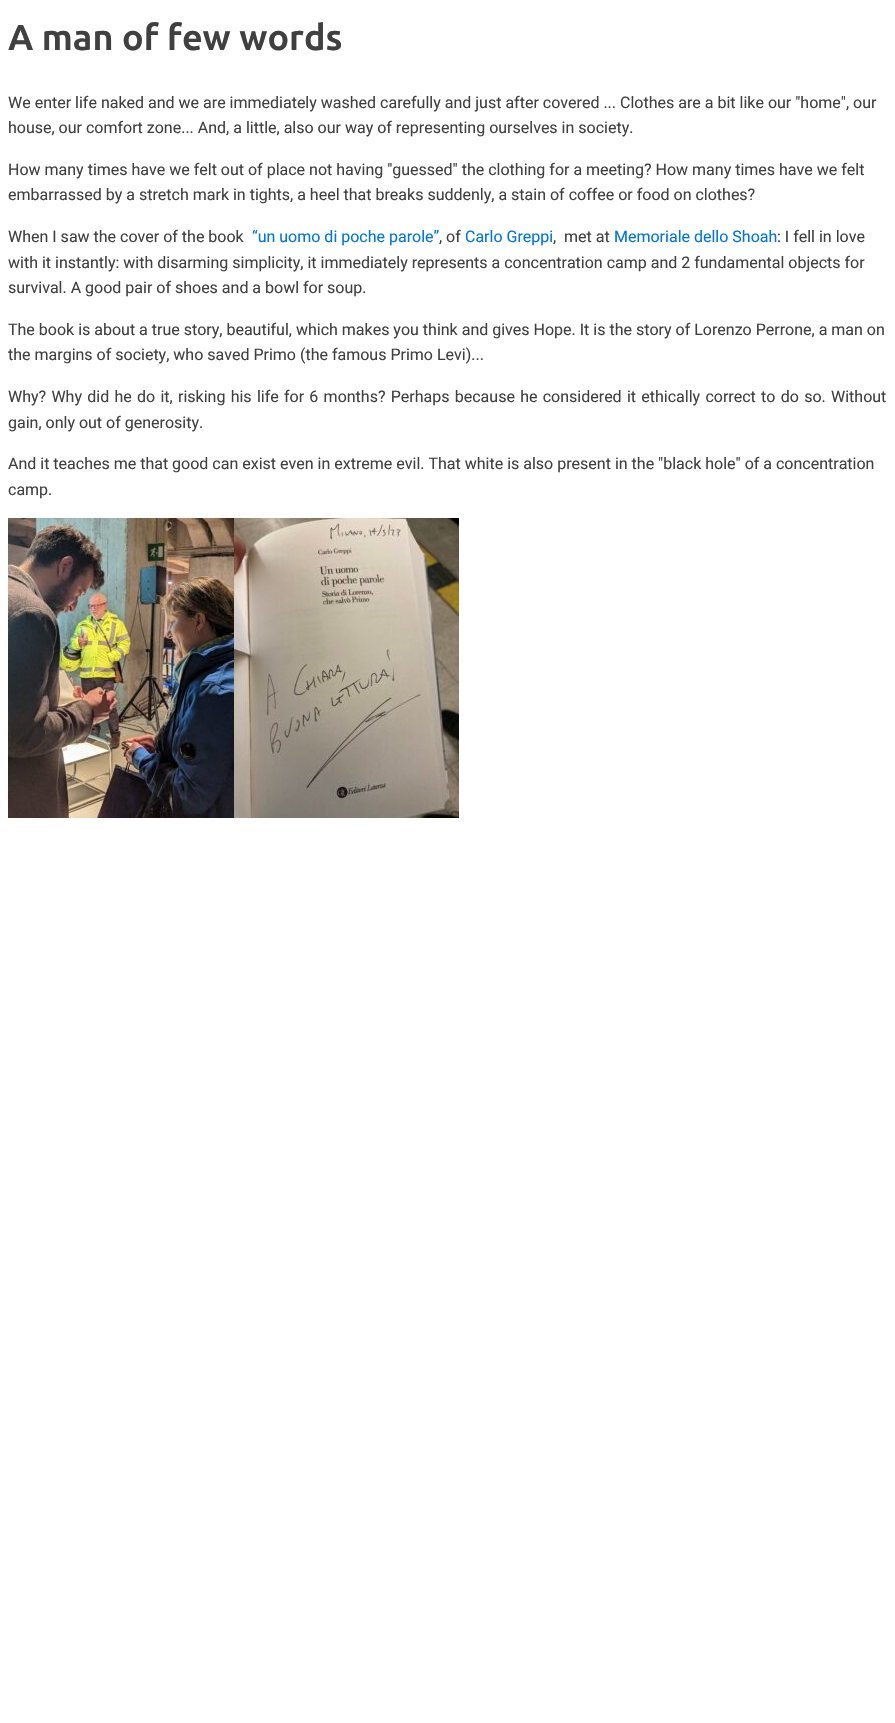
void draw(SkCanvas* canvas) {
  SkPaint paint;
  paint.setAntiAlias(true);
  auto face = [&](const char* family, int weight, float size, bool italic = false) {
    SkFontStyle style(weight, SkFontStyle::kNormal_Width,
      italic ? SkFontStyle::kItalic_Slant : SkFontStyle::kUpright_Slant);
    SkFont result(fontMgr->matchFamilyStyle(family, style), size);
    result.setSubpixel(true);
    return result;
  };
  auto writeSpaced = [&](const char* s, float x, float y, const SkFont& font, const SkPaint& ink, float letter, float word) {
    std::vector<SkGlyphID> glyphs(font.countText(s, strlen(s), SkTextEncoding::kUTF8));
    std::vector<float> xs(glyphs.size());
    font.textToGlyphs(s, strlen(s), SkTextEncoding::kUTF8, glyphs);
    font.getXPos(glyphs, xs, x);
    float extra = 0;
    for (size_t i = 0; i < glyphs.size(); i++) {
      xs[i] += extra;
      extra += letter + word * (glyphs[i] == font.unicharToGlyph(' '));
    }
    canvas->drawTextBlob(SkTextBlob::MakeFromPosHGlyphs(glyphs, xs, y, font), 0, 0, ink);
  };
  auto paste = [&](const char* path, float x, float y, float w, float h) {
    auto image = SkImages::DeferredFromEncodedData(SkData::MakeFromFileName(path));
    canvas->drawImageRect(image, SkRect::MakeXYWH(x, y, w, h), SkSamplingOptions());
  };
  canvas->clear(0xffffffff);
  paste("img/1.png", 8, 518, 226, 300);
  paste("img/2.png", 234, 518, 225, 300);
  auto f0 = face("Ubuntu", 700, 36);
  paint.setColor(0xff404040);
  canvas->drawString("A man of few words", 8, 50, f0, paint);
  auto f1 = face("Roboto", 400, 16);
  {
    const struct { const char* s; float x, y; } items[] = {
      {"We enter life naked and we are immediately washed carefully and just after covered ... Clothes are a bit like our \"home\", our", 8, 108},
      {"house, our comfort zone... And, a little, also our way of representing ourselves in society.", 8, 133},
      {"How many times have we felt out of place not having \"guessed\" the clothing for a meeting? How many times have we felt", 8, 175},
      {"embarrassed by a stretch mark in tights, a heel that breaks suddenly, a stain of coffee or food on clothes?", 8, 200},
      {"When I saw the cover of the book", 8, 242},
    };
    for (auto [s, x, y] : items) {
      canvas->drawString(s, x, y, f1, paint);
    }
  }
  paint.setColor(0xff0074db);
  canvas->drawString("“un uomo di poche parole”", 252, 242, f1, paint);
  paint.setColor(0xff404040);
  canvas->drawString(", of", 439, 242, f1, paint);
  paint.setColor(0xff0074db);
  canvas->drawString("Carlo Greppi", 465, 242, f1, paint);
  paint.setColor(0xff404040);
  canvas->drawString(",  met at", 553, 242, f1, paint);
  paint.setColor(0xff0074db);
  canvas->drawString("Memoriale dello Shoah", 614, 242, f1, paint);
  paint.setColor(0xff404040);
  {
    const struct { const char* s; float x, y; } items[] = {
      {": I fell in love", 777, 242},
      {"with it instantly: with disarming simplicity, it immediately represents a concentration camp and 2 fundamental objects for", 8, 268},
      {"survival. A good pair of shoes and a bowl for soup.", 8, 293},
      {"The book is about a true story, beautiful, which makes you think and gives Hope. It is the story of Lorenzo Perrone, a man on", 8, 335},
      {"the margins of society, who saved Primo (the famous Primo Levi)...", 8, 360},
    };
    for (auto [s, x, y] : items) {
      canvas->drawString(s, x, y, f1, paint);
    }
  }
  writeSpaced("Why? Why did he do it, risking his life for 6 months? Perhaps because he considered it ethically correct to do so. Without", 8, 402, f1, paint, 0, 1.3f);
  {
    const struct { const char* s; float x, y; } items[] = {
      {"gain, only out of generosity.", 8, 428},
      {"And it teaches me that good can exist even in extreme evil. That white is also present in the \"black hole\" of a concentration", 8, 469},
      {"camp.", 8, 495},
    };
    for (auto [s, x, y] : items) {
      canvas->drawString(s, x, y, f1, paint);
    }
  }
}
